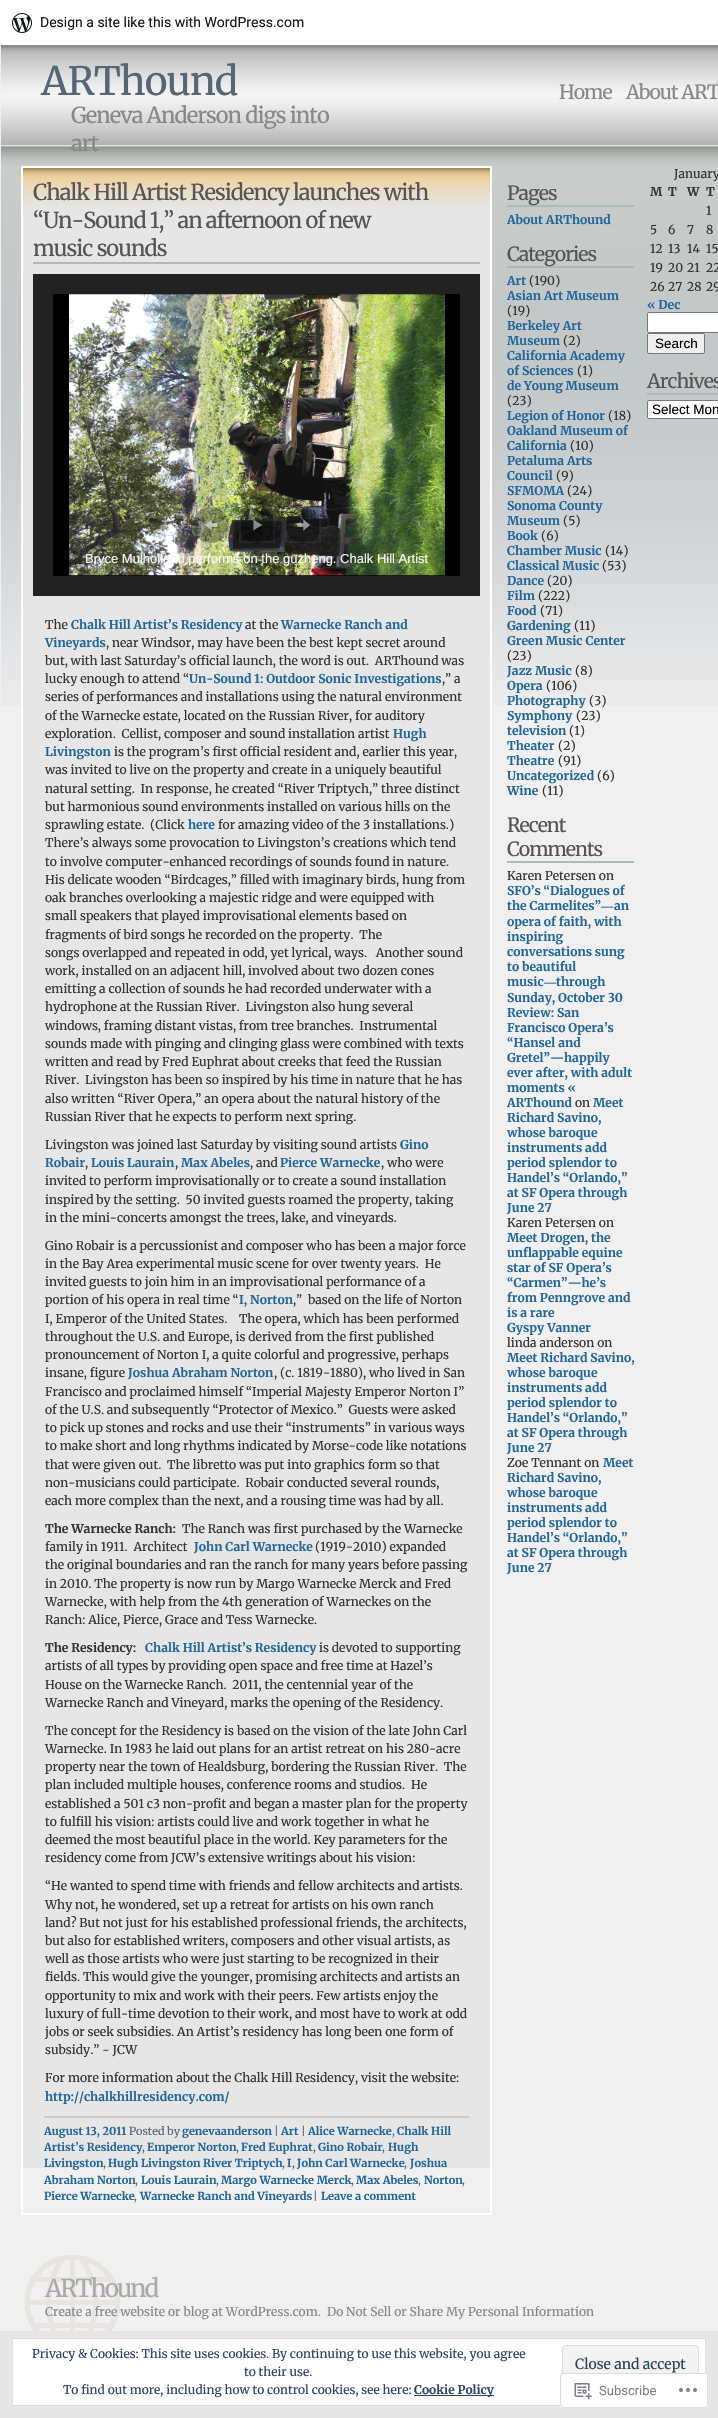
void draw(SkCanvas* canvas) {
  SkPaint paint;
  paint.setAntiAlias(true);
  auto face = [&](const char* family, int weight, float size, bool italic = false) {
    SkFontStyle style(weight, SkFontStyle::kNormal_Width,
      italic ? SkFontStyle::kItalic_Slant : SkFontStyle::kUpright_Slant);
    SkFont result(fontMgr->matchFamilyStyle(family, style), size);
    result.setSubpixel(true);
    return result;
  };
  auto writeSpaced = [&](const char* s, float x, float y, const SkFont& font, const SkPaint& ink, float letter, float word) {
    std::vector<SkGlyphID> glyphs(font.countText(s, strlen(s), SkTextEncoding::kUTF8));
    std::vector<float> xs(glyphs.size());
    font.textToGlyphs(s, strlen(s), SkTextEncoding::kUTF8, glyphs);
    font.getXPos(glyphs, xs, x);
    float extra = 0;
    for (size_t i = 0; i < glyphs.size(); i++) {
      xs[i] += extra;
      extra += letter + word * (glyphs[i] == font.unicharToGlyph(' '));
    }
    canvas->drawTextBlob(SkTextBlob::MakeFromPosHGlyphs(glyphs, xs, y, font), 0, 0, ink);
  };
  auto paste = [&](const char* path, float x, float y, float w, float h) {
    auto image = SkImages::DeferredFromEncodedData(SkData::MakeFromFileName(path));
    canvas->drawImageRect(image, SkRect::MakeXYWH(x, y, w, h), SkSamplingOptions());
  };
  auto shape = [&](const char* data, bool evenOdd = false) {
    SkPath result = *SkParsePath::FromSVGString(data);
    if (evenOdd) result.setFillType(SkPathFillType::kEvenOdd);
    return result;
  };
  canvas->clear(0xffe6e6e6);
  paste("img/2.png", 1, 45, 717, 661);
  paint.setColor(0xffeeeeff);
  canvas->drawRect(SkRect::MakeXYWH(0, 45, 1, 2286), paint);
  paint.setColor(0x0d000000);
  paint.setMaskFilter(SkMaskFilter::MakeBlur(kNormal_SkBlurStyle, 1));
  canvas->drawRect(SkRect::MakeXYWH(0, 1, 718, 45), paint);
  paint.setMaskFilter(nullptr);
  paint.setColor(0x14000000);
  canvas->drawPath(shape("M1 45V48H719V3H718V45Z"), paint);
  paint.setColor(0xffffffff);
  canvas->drawRect(SkRect::MakeXYWH(0, 0, 718, 45), paint);
  paste("img/1.png", 12, 13, 20, 20);
  paint.setColor(0xfff0f0f0);
  canvas->drawRect(SkRect::MakeXYWH(1, 706, 717, 1625), paint);
  paste("img/3.png", 24, 2255, 97, 76);
  paste("img/4.png", 23, 168, 467, 2000);
  paint.setStroke(true);
  paint.setStrokeWidth(2);
  paint.setColor(0xffffffff);
  canvas->drawRect(SkRect::MakeXYWH(22, 167, 469, 2047), paint);
  paint.setStroke(false);
  paint.setColor(0xffaabbbb);
  canvas->drawRect(SkRect::MakeXYWH(33, 262, 447, 2), paint);
  paint.setStroke(true);
  paint.setStrokeWidth(20);
  paint.setColor(0xff222222);
  canvas->drawRect(SkRect::MakeXYWH(43, 284, 427, 302), paint);
  paint.setStroke(false);
  paint.setColor(0xff000000);
  canvas->drawRect(SkRect::MakeXYWH(53, 294, 407, 282), paint);
  paste("img/8.png", 69, 294, 376, 282);
  paint.setColor(0x4d000000);
  canvas->drawCircle(211, 525, 18, paint);
  paste("img/5.png", 204, 519, 16, 13);
  paint.setStroke(true);
  paint.setStrokeWidth(2);
  paint.setColor(0x0dffffff);
  canvas->drawRect(SkRect::MakeXYWH(194, 508, 34, 34), paint);
  paint.setStroke(false);
  paint.setColor(0x4d000000);
  canvas->drawCircle(257, 525, 18, paint);
  paste("img/6.png", 253, 519, 10, 12);
  paint.setStroke(true);
  paint.setColor(0x0dffffff);
  canvas->drawRect(SkRect::MakeXYWH(240, 508, 34, 34), paint);
  paint.setStroke(false);
  paint.setColor(0x4d000000);
  canvas->drawCircle(303, 525, 18, paint);
  paste("img/7.png", 297, 519, 14, 12);
  paint.setStroke(true);
  paint.setColor(0x0dffffff);
  canvas->drawRect(SkRect::MakeXYWH(286, 508, 34, 34), paint);
  paint.setStroke(false);
  {
    const struct { float x, y, w, h; SkColor color; } items[] = {
      {44, 2116, 425, 2, 0xffcccccc},
      {507, 205, 127, 2, 0xffaabbbb},
      {507, 266, 127, 2, 0xffaabbbb},
      {507, 861, 127, 2, 0xffaabbbb},
    };
    for (auto [x, y, w, h, color] : items) {
      paint.setColor(color);
      canvas->drawRect(SkRect::MakeXYWH(x, y, w, h), paint);
    }
  }
  paint.setColor(0xffffffff);
  canvas->drawRoundRect(SkRect::MakeXYWH(647.5f, 312.5f, 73, 20), 1.5f, 1.5f, paint);
  paint.setStroke(true);
  paint.setStrokeWidth(1);
  paint.setColor(0xff767676);
  canvas->drawRoundRect(SkRect::MakeXYWH(647.5f, 312.5f, 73, 20), 1.5f, 1.5f, paint);
  paint.setStroke(false);
  paint.setColor(0xffefefef);
  canvas->drawRoundRect(SkRect::MakeXYWH(647.5f, 333.5f, 57, 20), 1.5f, 1.5f, paint);
  paint.setStroke(true);
  paint.setColor(0xff767676);
  canvas->drawRoundRect(SkRect::MakeXYWH(647.5f, 333.5f, 57, 20), 1.5f, 1.5f, paint);
  paint.setStroke(false);
  paint.setColor(0xffaabbbb);
  canvas->drawRect(SkRect::MakeXYWH(647, 393, 71, 2), paint);
  paint.setColor(0xffffffff);
  canvas->drawRoundRect(SkRect::MakeXYWH(647.5f, 400.5f, 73, 18), 1.5f, 1.5f, paint);
  paint.setStroke(true);
  paint.setColor(0xff767676);
  canvas->drawRoundRect(SkRect::MakeXYWH(647.5f, 400.5f, 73, 18), 1.5f, 1.5f, paint);
  paint.setStroke(false);
  paint.setColor(0xffffffff);
  canvas->drawRect(SkRect::MakeXYWH(12.5f, 2338.5f, 693, 67), paint);
  paint.setStroke(true);
  paint.setColor(0xffdedede);
  canvas->drawRect(SkRect::MakeXYWH(12.5f, 2338.5f, 693, 67), paint);
  paint.setStroke(false);
  paint.setColor(0xfff3f3f3);
  canvas->drawRoundRect(SkRect::MakeXYWH(562.5f, 2345.5f, 136, 38), 2.5f, 2.5f, paint);
  paint.setStroke(true);
  paint.setColor(0xffdedede);
  canvas->drawRoundRect(SkRect::MakeXYWH(562.5f, 2345.5f, 136, 38), 2.5f, 2.5f, paint);
  paint.setStroke(false);
  paint.setColor(0xff2e4467);
  canvas->drawRect(SkRect::MakeXYWH(414, 2395, 80, 1), paint);
  paint.setColor(0xfaffffff);
  canvas->drawRoundRect(SkRect::MakeXYWH(560, 2373, 148, 35), 3, 3, paint);
  paint.setStroke(true);
  paint.setColor(0xfadcdcde);
  canvas->drawRoundRect(SkRect::MakeXYWH(560.5f, 2373.5f, 147, 34), 2.5f, 2.5f, paint);
  paste("img/9.png", 574, 2383, 18, 17);
  paste("img/10.png", 679, 2388, 18, 4);
  auto f0 = face("Roboto", 400, 14);
  paint.setStroke(false);
  paint.setColor(0xff171717);
  canvas->drawString("Design a site like this with WordPress.com", 40, 27, f0, paint);
  auto f1 = face("Merriweather", 400, 39);
  paint.setColor(0xff556677);
  writeSpaced("ARThound", 41, 95, f1, paint, -1, 0);
  auto f2 = face("Merriweather", 400, 21.9f);
  paint.setColor(0xff888888);
  writeSpaced("Geneva Anderson digs into", 71, 123, f2, paint, -1, 0);
  writeSpaced("art", 71, 151, f2, paint, -1, 0);
  auto f3 = face("Merriweather", 400, 19.5f);
  writeSpaced("Home", 559, 99, f3, paint, -1, 0);
  writeSpaced("About ART", 626, 99, f3, paint, -1, 0);
  paint.setColor(0xff555555);
  {
    const struct { const char* s; float x, y; } items[] = {
      {"Chalk Hill Artist Residency launches with", 33, 200},
      {"“Un-Sound 1,” an afternoon of new", 33, 228},
      {"music sounds", 33, 256},
    };
    for (auto [s, x, y] : items) {
      writeSpaced(s, x, y, f2, paint, -1, 0);
    }
  }
  auto f4 = face("Liberation Sans", 400, 13);
  paint.setColor(0xfff6f7f7);
  canvas->drawString("Bryce Mulholland performs on the guzheng. Chalk Hill Artist", 85, 563, f4, paint);
  auto f5 = face("Merriweather", 400, 12.15f);
  paint.setColor(0xff333333);
  canvas->drawString("The", 45, 629, f5, paint);
  auto f6 = face("Merriweather", 700, 12.15f);
  paint.setColor(0xff226699);
  canvas->drawString("Chalk Hill Artist’s Residency", 71, 629, f6, paint);
  paint.setColor(0xff333333);
  canvas->drawString("at the", 245, 629, f5, paint);
  paint.setColor(0xff226699);
  canvas->drawString("Warnecke Ranch and", 281, 629, f6, paint);
  canvas->drawString("Vineyards", 45, 647, f6, paint);
  paint.setColor(0xff333333);
  {
    const struct { const char* s; float x, y; } items[] = {
      {", near Windsor, may have been the best kept secret around", 106, 647},
      {"but, with last Saturday’s official launch, the word is out.  ARThound was", 45, 665},
      {"lucky enough to attend “", 45, 683},
    };
    for (auto [s, x, y] : items) {
      canvas->drawString(s, x, y, f5, paint);
    }
  }
  paint.setColor(0xff226699);
  canvas->drawString("Un-Sound 1: Outdoor Sonic Investigations", 189, 683, f6, paint);
  paint.setColor(0xff333333);
  {
    const struct { const char* s; float x, y; } items[] = {
      {",” a", 442, 683},
      {"series of performances and installations using the natural environment", 45, 701},
      {"of the Warnecke estate, located on the Russian River, for auditory", 45, 720},
      {"exploration.  Cellist, composer and sound installation artist", 45, 738},
    };
    for (auto [s, x, y] : items) {
      canvas->drawString(s, x, y, f5, paint);
    }
  }
  paint.setColor(0xff226699);
  canvas->drawString("Hugh", 393, 738, f6, paint);
  canvas->drawString("Livingston", 45, 756, f6, paint);
  paint.setColor(0xff333333);
  {
    const struct { const char* s; float x, y; } items[] = {
      {"is the program’s first official resident and, earlier this year,", 114, 756},
      {"was invited to live on the property and create in a uniquely beautiful", 45, 774},
      {"natural setting.  In response, he created “River Triptych,” three distinct", 45, 793},
      {"but harmonious sound environments installed on various hills on the", 45, 811},
      {"sprawling estate.  (Click", 45, 829},
    };
    for (auto [s, x, y] : items) {
      canvas->drawString(s, x, y, f5, paint);
    }
  }
  paint.setColor(0xff226699);
  canvas->drawString("here", 188, 829, f6, paint);
  paint.setColor(0xff333333);
  {
    const struct { const char* s; float x, y; } items[] = {
      {"for amazing video of the 3 installations.)", 218, 829},
      {"There’s always some provocation to Livingston’s creations which tend", 45, 847},
      {"to involve computer-enhanced recordings of sounds found in nature.", 45, 866},
      {"His delicate wooden “Birdcages,” filled with imaginary birds, hung from", 45, 884},
      {"oak branches overlooking a majestic ridge and were equipped with", 45, 902},
      {"small speakers that played improvisational elements based on", 45, 920},
      {"fragments of bird songs he recorded on the property.  The", 45, 939},
      {"songs overlapped and repeated in odd, yet lyrical, ways.   Another sound", 45, 957},
      {"work, installed on an adjacent hill, involved about two dozen cones", 45, 975},
      {"emitting a collection of sounds he had recorded underwater with a", 45, 993},
      {"hydrophone at the Russian River.  Livingston also hung several", 45, 1011},
      {"windows, framing distant vistas, from tree branches.  Instrumental", 45, 1030},
      {"sounds made with pinging and clinging glass were combined with texts", 45, 1048},
      {"written and read by Fred Euphrat about creeks that feed the Russian", 45, 1066},
      {"River.  Livingston has been so inspired by his time in nature that he has", 45, 1084},
      {"also written “River Opera,” an opera about the natural history of the", 45, 1103},
      {"Russian River that he expects to perform next spring.", 45, 1121},
      {"Livingston was joined last Saturday by visiting sound artists", 45, 1149},
    };
    for (auto [s, x, y] : items) {
      canvas->drawString(s, x, y, f5, paint);
    }
  }
  paint.setColor(0xff226699);
  canvas->drawString("Gino", 400, 1149, f6, paint);
  canvas->drawString("Robair", 45, 1167, f6, paint);
  paint.setColor(0xff333333);
  canvas->drawString(",", 85, 1167, f5, paint);
  paint.setColor(0xff226699);
  canvas->drawString("Louis Laurain", 91, 1167, f6, paint);
  paint.setColor(0xff333333);
  canvas->drawString(",", 175, 1167, f5, paint);
  paint.setColor(0xff226699);
  canvas->drawString("Max Abeles", 181, 1167, f6, paint);
  paint.setColor(0xff333333);
  canvas->drawString(", and", 250, 1167, f5, paint);
  paint.setColor(0xff226699);
  canvas->drawString("Pierce Warnecke", 280, 1167, f6, paint);
  paint.setColor(0xff333333);
  {
    const struct { const char* s; float x, y; } items[] = {
      {", who were", 381, 1167},
      {"invited to perform improvisationally or to create a sound installation", 45, 1185},
      {"inspired by the setting.  50 invited guests roamed the property, taking", 45, 1204},
      {"in the mini-concerts amongst the trees, lake, and vineyards.", 45, 1222},
      {"Gino Robair is a percussionist and composer who has been a major force", 45, 1250},
      {"in the Bay Area experimental music scene for over twenty years.  He", 45, 1268},
      {"invited guests to join him in an improvisational performance of a", 45, 1286},
      {"portion of his opera in real time “", 45, 1304},
    };
    for (auto [s, x, y] : items) {
      canvas->drawString(s, x, y, f5, paint);
    }
  }
  paint.setColor(0xff226699);
  canvas->drawString("I, Norton", 239, 1304, f6, paint);
  paint.setColor(0xff333333);
  {
    const struct { const char* s; float x, y; } items[] = {
      {",”  based on the life of Norton", 293, 1304},
      {"I, Emperor of the United States.    The opera, which has been performed", 45, 1323},
      {"throughout the U.S. and Europe, is derived from the first published", 45, 1341},
      {"pronouncement of Norton I, a quite colorful and progressive, perhaps", 45, 1359},
      {"insane, figure", 45, 1377},
    };
    for (auto [s, x, y] : items) {
      canvas->drawString(s, x, y, f5, paint);
    }
  }
  paint.setColor(0xff226699);
  canvas->drawString("Joshua Abraham Norton", 128, 1377, f6, paint);
  paint.setColor(0xff333333);
  {
    const struct { const char* s; float x, y; } items[] = {
      {", (c. 1819-1880), who lived in San", 274, 1377},
      {"Francisco and proclaimed himself “Imperial Majesty Emperor Norton I”", 45, 1396},
      {"of the U.S. and subsequently “Protector of Mexico.”  Guests were asked", 45, 1414},
      {"to pick up stones and rocks and use their “instruments” in various ways", 45, 1432},
      {"to make short and long rhythms indicated by Morse-code like notations", 45, 1450},
      {"that were given out.  The libretto was put into graphics form so that", 45, 1469},
      {"non-musicians could participate.  Robair conducted several rounds,", 45, 1487},
      {"each more complex than the next, and a rousing time was had by all.", 45, 1505},
    };
    for (auto [s, x, y] : items) {
      canvas->drawString(s, x, y, f5, paint);
    }
  }
  canvas->drawString("The Warnecke Ranch:", 45, 1533, f6, paint);
  canvas->drawString("The Ranch was first purchased by the Warnecke", 182, 1533, f5, paint);
  canvas->drawString("family in 1911.  Architect", 45, 1551, f5, paint);
  paint.setColor(0xff226699);
  canvas->drawString("John Carl Warnecke", 194, 1551, f6, paint);
  paint.setColor(0xff333333);
  {
    const struct { const char* s; float x, y; } items[] = {
      {"(1919-2010) expanded", 315, 1551},
      {"the original boundaries and ran the ranch for many years before passing", 45, 1569},
      {"in 2010. The property is now run by Margo Warnecke Merck and Fred", 45, 1588},
      {"Warnecke, with help from the 4th generation of Warneckes on the", 45, 1606},
      {"Ranch: Alice, Pierce, Grace and Tess Warnecke.", 45, 1624},
    };
    for (auto [s, x, y] : items) {
      canvas->drawString(s, x, y, f5, paint);
    }
  }
  canvas->drawString("The Residency:", 45, 1652, f6, paint);
  paint.setColor(0xff226699);
  canvas->drawString("Chalk Hill Artist’s Residency", 145, 1652, f6, paint);
  paint.setColor(0xff333333);
  {
    const struct { const char* s; float x, y; } items[] = {
      {"is devoted to supporting", 319, 1652},
      {"artists of all types by providing open space and free time at Hazel’s", 45, 1670},
      {"House on the Warnecke Ranch.  2011, the centennial year of the", 45, 1689},
      {"Warnecke Ranch and Vineyard, marks the opening of the Residency.", 45, 1707},
      {"The concept for the Residency is based on the vision of the late John Carl", 45, 1735},
      {"Warnecke. In 1983 he laid out plans for an artist retreat on his 280-acre", 45, 1753},
      {"property near the town of Healdsburg, bordering the Russian River.  The", 45, 1771},
      {"plan included multiple houses, conference rooms and studios.  He", 45, 1789},
      {"established a 501 c3 non-profit and began a master plan for the property", 45, 1808},
      {"to fulfill his vision: artists could live and work together in what he", 45, 1826},
      {"deemed the most beautiful place in the world. Key parameters for the", 45, 1844},
      {"residency come from JCW’s extensive writings about his vision:", 45, 1862},
      {"“He wanted to spend time with friends and fellow architects and artists.", 45, 1890},
      {"Why not, he wondered, set up a retreat for artists on his own ranch", 45, 1909},
      {"land? But not just for his established professional friends, the architects,", 45, 1927},
      {"but also for established writers, composers and other visual artists, as", 45, 1945},
      {"well as those artists who were just starting to be recognized in their", 45, 1963},
      {"fields. This would give the younger, promising architects and artists an", 45, 1981},
      {"opportunity to mix and work with their peers. Few artists enjoy the", 45, 2000},
      {"luxury of full-time devotion to their work, and most have to work at odd", 45, 2018},
      {"jobs or seek subsidies. An Artist’s residency has long been one form of", 45, 2036},
      {"subsidy.” ~ JCW", 45, 2054},
      {"For more information about the Chalk Hill Residency, visit the website:", 45, 2082},
    };
    for (auto [s, x, y] : items) {
      canvas->drawString(s, x, y, f5, paint);
    }
  }
  paint.setColor(0xff226699);
  canvas->drawString("http://chalkhillresidency.com/", 45, 2101, f6, paint);
  auto f7 = face("Merriweather", 700, 11);
  canvas->drawString("August 13, 2011", 44, 2135, f7, paint);
  auto f8 = face("Merriweather", 400, 11);
  paint.setColor(0xff556677);
  canvas->drawString("Posted by", 129, 2135, f8, paint);
  paint.setColor(0xff226699);
  canvas->drawString("genevaanderson", 182, 2135, f7, paint);
  paint.setColor(0xff556677);
  canvas->drawString("|", 274, 2135, f8, paint);
  paint.setColor(0xff226699);
  canvas->drawString("Art", 281, 2135, f7, paint);
  paint.setColor(0xff556677);
  canvas->drawString("|", 301, 2135, f8, paint);
  paint.setColor(0xff226699);
  canvas->drawString("Alice Warnecke", 308, 2135, f7, paint);
  paint.setColor(0xff556677);
  canvas->drawString(",", 392, 2135, f8, paint);
  paint.setColor(0xff226699);
  canvas->drawString("Chalk Hill", 397, 2135, f7, paint);
  canvas->drawString("Artist’s Residency", 44, 2151, f7, paint);
  paint.setColor(0xff556677);
  canvas->drawString(",", 142, 2151, f8, paint);
  paint.setColor(0xff226699);
  canvas->drawString("Emperor Norton", 147, 2151, f7, paint);
  paint.setColor(0xff556677);
  canvas->drawString(",", 236, 2151, f8, paint);
  paint.setColor(0xff226699);
  canvas->drawString("Fred Euphrat", 241, 2151, f7, paint);
  paint.setColor(0xff556677);
  canvas->drawString(",", 313, 2151, f8, paint);
  paint.setColor(0xff226699);
  canvas->drawString("Gino Robair", 318, 2151, f7, paint);
  paint.setColor(0xff556677);
  canvas->drawString(",", 382, 2151, f8, paint);
  paint.setColor(0xff226699);
  canvas->drawString("Hugh", 388, 2151, f7, paint);
  canvas->drawString("Livingston", 44, 2167, f7, paint);
  paint.setColor(0xff556677);
  canvas->drawString(",", 103, 2167, f8, paint);
  paint.setColor(0xff226699);
  canvas->drawString("Hugh Livingston River Triptych", 108, 2167, f7, paint);
  paint.setColor(0xff556677);
  canvas->drawString(",", 282, 2167, f8, paint);
  paint.setColor(0xff226699);
  canvas->drawString("I", 287, 2167, f7, paint);
  paint.setColor(0xff556677);
  canvas->drawString(",", 292, 2167, f8, paint);
  paint.setColor(0xff226699);
  canvas->drawString("John Carl Warnecke", 297, 2167, f7, paint);
  paint.setColor(0xff556677);
  canvas->drawString(",", 404, 2167, f8, paint);
  paint.setColor(0xff226699);
  canvas->drawString("Joshua", 410, 2167, f7, paint);
  canvas->drawString("Abraham Norton", 44, 2184, f7, paint);
  paint.setColor(0xff556677);
  canvas->drawString(",", 135, 2184, f8, paint);
  paint.setColor(0xff226699);
  canvas->drawString("Louis Laurain", 141, 2184, f7, paint);
  paint.setColor(0xff556677);
  canvas->drawString(",", 216, 2184, f8, paint);
  paint.setColor(0xff226699);
  canvas->drawString("Margo Warnecke Merck", 221, 2184, f7, paint);
  paint.setColor(0xff556677);
  canvas->drawString(",", 351, 2184, f8, paint);
  paint.setColor(0xff226699);
  canvas->drawString("Max Abeles", 356, 2184, f7, paint);
  paint.setColor(0xff556677);
  canvas->drawString(",", 418, 2184, f8, paint);
  paint.setColor(0xff226699);
  canvas->drawString("Norton", 424, 2184, f7, paint);
  paint.setColor(0xff556677);
  canvas->drawString(",", 462, 2184, f8, paint);
  paint.setColor(0xff226699);
  canvas->drawString("Pierce Warnecke", 44, 2200, f7, paint);
  paint.setColor(0xff556677);
  canvas->drawString(",", 134, 2200, f8, paint);
  paint.setColor(0xff226699);
  canvas->drawString("Warnecke Ranch and Vineyards", 140, 2200, f7, paint);
  paint.setColor(0xff556677);
  canvas->drawString("|", 313, 2200, f8, paint);
  paint.setColor(0xff226699);
  canvas->drawString("Leave a comment", 321, 2200, f7, paint);
  paint.setColor(0xff555555);
  writeSpaced("Pages", 507, 200, f3, paint, -1, 0);
  paint.setColor(0xff226699);
  canvas->drawString("About ARThound", 507, 224, f6, paint);
  paint.setColor(0xff555555);
  writeSpaced("Categories", 507, 261, f3, paint, -1, 0);
  paint.setColor(0xff226699);
  canvas->drawString("Art", 507, 285, f6, paint);
  paint.setColor(0xff333333);
  canvas->drawString("(190)", 529, 285, f5, paint);
  paint.setColor(0xff226699);
  canvas->drawString("Asian Art Museum", 507, 300, f6, paint);
  paint.setColor(0xff333333);
  canvas->drawString("(19)", 507, 315, f5, paint);
  paint.setColor(0xff226699);
  canvas->drawString("Berkeley Art", 507, 330, f6, paint);
  canvas->drawString("Museum", 507, 345, f6, paint);
  paint.setColor(0xff333333);
  canvas->drawString("(2)", 563, 345, f5, paint);
  paint.setColor(0xff226699);
  canvas->drawString("California Academy", 507, 360, f6, paint);
  canvas->drawString("of Sciences", 507, 375, f6, paint);
  paint.setColor(0xff333333);
  canvas->drawString("(1)", 577, 375, f5, paint);
  paint.setColor(0xff226699);
  canvas->drawString("de Young Museum", 507, 390, f6, paint);
  paint.setColor(0xff333333);
  canvas->drawString("(23)", 507, 405, f5, paint);
  paint.setColor(0xff226699);
  canvas->drawString("Legion of Honor", 507, 420, f6, paint);
  paint.setColor(0xff333333);
  canvas->drawString("(18)", 608, 420, f5, paint);
  paint.setColor(0xff226699);
  canvas->drawString("Oakland Museum of", 507, 435, f6, paint);
  canvas->drawString("California", 507, 450, f6, paint);
  paint.setColor(0xff333333);
  canvas->drawString("(10)", 570, 450, f5, paint);
  paint.setColor(0xff226699);
  canvas->drawString("Petaluma Arts", 507, 465, f6, paint);
  canvas->drawString("Council", 507, 480, f6, paint);
  paint.setColor(0xff333333);
  canvas->drawString("(9)", 556, 480, f5, paint);
  paint.setColor(0xff226699);
  canvas->drawString("SFMOMA", 507, 495, f6, paint);
  paint.setColor(0xff333333);
  canvas->drawString("(24)", 567, 495, f5, paint);
  paint.setColor(0xff226699);
  canvas->drawString("Sonoma County", 507, 510, f6, paint);
  canvas->drawString("Museum", 507, 525, f6, paint);
  paint.setColor(0xff333333);
  canvas->drawString("(5)", 563, 525, f5, paint);
  paint.setColor(0xff226699);
  canvas->drawString("Book", 507, 540, f6, paint);
  paint.setColor(0xff333333);
  canvas->drawString("(6)", 541, 540, f5, paint);
  paint.setColor(0xff226699);
  canvas->drawString("Chamber Music", 507, 555, f6, paint);
  paint.setColor(0xff333333);
  canvas->drawString("(14)", 605, 555, f5, paint);
  paint.setColor(0xff226699);
  canvas->drawString("Classical Music", 507, 570, f6, paint);
  paint.setColor(0xff333333);
  canvas->drawString("(53)", 602, 570, f5, paint);
  paint.setColor(0xff226699);
  canvas->drawString("Dance", 507, 585, f6, paint);
  paint.setColor(0xff333333);
  canvas->drawString("(20)", 547, 585, f5, paint);
  paint.setColor(0xff226699);
  canvas->drawString("Film", 507, 600, f6, paint);
  paint.setColor(0xff333333);
  canvas->drawString("(222)", 538, 600, f5, paint);
  paint.setColor(0xff226699);
  canvas->drawString("Food", 507, 615, f6, paint);
  paint.setColor(0xff333333);
  canvas->drawString("(71)", 540, 615, f5, paint);
  paint.setColor(0xff226699);
  canvas->drawString("Gardening", 507, 630, f6, paint);
  paint.setColor(0xff333333);
  canvas->drawString("(11)", 574, 630, f5, paint);
  paint.setColor(0xff226699);
  canvas->drawString("Green Music Center", 507, 645, f6, paint);
  paint.setColor(0xff333333);
  canvas->drawString("(23)", 507, 660, f5, paint);
  paint.setColor(0xff226699);
  canvas->drawString("Jazz Music", 507, 675, f6, paint);
  paint.setColor(0xff333333);
  canvas->drawString("(8)", 575, 675, f5, paint);
  paint.setColor(0xff226699);
  canvas->drawString("Opera", 507, 690, f6, paint);
  paint.setColor(0xff333333);
  canvas->drawString("(106)", 546, 690, f5, paint);
  paint.setColor(0xff226699);
  canvas->drawString("Photography", 507, 705, f6, paint);
  paint.setColor(0xff333333);
  canvas->drawString("(3)", 589, 705, f5, paint);
  paint.setColor(0xff226699);
  canvas->drawString("Symphony", 507, 720, f6, paint);
  paint.setColor(0xff333333);
  canvas->drawString("(23)", 576, 720, f5, paint);
  paint.setColor(0xff226699);
  canvas->drawString("television", 507, 735, f6, paint);
  paint.setColor(0xff333333);
  canvas->drawString("(1)", 569, 735, f5, paint);
  paint.setColor(0xff226699);
  canvas->drawString("Theater", 507, 750, f6, paint);
  paint.setColor(0xff333333);
  canvas->drawString("(2)", 558, 750, f5, paint);
  paint.setColor(0xff226699);
  canvas->drawString("Theatre", 507, 765, f6, paint);
  paint.setColor(0xff333333);
  canvas->drawString("(91)", 558, 765, f5, paint);
  paint.setColor(0xff226699);
  canvas->drawString("Uncategorized", 507, 780, f6, paint);
  paint.setColor(0xff333333);
  canvas->drawString("(6)", 597, 780, f5, paint);
  paint.setColor(0xff226699);
  canvas->drawString("Wine", 507, 795, f6, paint);
  paint.setColor(0xff333333);
  canvas->drawString("(11)", 542, 795, f5, paint);
  paint.setColor(0xff555555);
  writeSpaced("Recent", 507, 832, f3, paint, -1, 0);
  writeSpaced("Comments", 507, 856, f3, paint, -1, 0);
  paint.setColor(0xff333333);
  canvas->drawString("Karen Petersen on", 507, 880, f5, paint);
  paint.setColor(0xff226699);
  canvas->drawString("SFO’s “Dialogues of", 507, 895, f6, paint);
  canvas->drawString("the Carmelites”", 507, 910, f6, paint);
  auto f9 = face("Liberation Serif", 700, 12.15f);
  canvas->drawString("―", 601, 910, f9, paint);
  {
    const struct { const char* s; float x, y; } items[] = {
      {"an", 614, 910},
      {"opera of faith, with", 507, 926},
      {"inspiring", 507, 941},
      {"conversations sung", 507, 956},
      {"to beautiful", 507, 971},
      {"music", 507, 986},
    };
    for (auto [s, x, y] : items) {
      canvas->drawString(s, x, y, f6, paint);
    }
  }
  canvas->drawString("―", 544, 986, f9, paint);
  {
    const struct { const char* s; float x, y; } items[] = {
      {"through", 556, 986},
      {"Sunday, October 30", 507, 1002},
      {"Review: San", 507, 1017},
      {"Francisco Opera’s", 507, 1032},
      {"“Hansel and", 507, 1047},
      {"Gretel”—happily", 507, 1062},
      {"ever after, with adult", 507, 1077},
      {"moments «", 507, 1092},
      {"ARThound", 507, 1107},
    };
    for (auto [s, x, y] : items) {
      canvas->drawString(s, x, y, f6, paint);
    }
  }
  paint.setColor(0xff333333);
  canvas->drawString("on", 575, 1107, f5, paint);
  paint.setColor(0xff226699);
  {
    const struct { const char* s; float x, y; } items[] = {
      {"Meet", 593, 1107},
      {"Richard Savino,", 507, 1122},
      {"whose baroque", 507, 1137},
      {"instruments add", 507, 1152},
      {"period splendor to", 507, 1167},
      {"Handel’s “Orlando,”", 507, 1182},
      {"at SF Opera through", 507, 1197},
      {"June 27", 507, 1212},
    };
    for (auto [s, x, y] : items) {
      canvas->drawString(s, x, y, f6, paint);
    }
  }
  paint.setColor(0xff333333);
  canvas->drawString("Karen Petersen on", 507, 1227, f5, paint);
  paint.setColor(0xff226699);
  {
    const struct { const char* s; float x, y; } items[] = {
      {"Meet Drogen, the", 507, 1242},
      {"unflappable equine", 507, 1257},
      {"star of SF Opera’s", 507, 1272},
      {"“Carmen”—he’s", 507, 1287},
      {"from Penngrove and", 507, 1302},
      {"is a rare", 507, 1317},
      {"Gyspy Vanner", 507, 1332},
    };
    for (auto [s, x, y] : items) {
      canvas->drawString(s, x, y, f6, paint);
    }
  }
  paint.setColor(0xff333333);
  canvas->drawString("linda anderson on", 507, 1347, f5, paint);
  paint.setColor(0xff226699);
  {
    const struct { const char* s; float x, y; } items[] = {
      {"Meet Richard Savino,", 507, 1362},
      {"whose baroque", 507, 1377},
      {"instruments add", 507, 1392},
      {"period splendor to", 507, 1407},
      {"Handel’s “Orlando,”", 507, 1422},
      {"at SF Opera through", 507, 1437},
      {"June 27", 507, 1452},
    };
    for (auto [s, x, y] : items) {
      canvas->drawString(s, x, y, f6, paint);
    }
  }
  paint.setColor(0xff333333);
  canvas->drawString("Zoe Tennant on", 507, 1467, f5, paint);
  paint.setColor(0xff226699);
  {
    const struct { const char* s; float x, y; } items[] = {
      {"Meet", 603, 1467},
      {"Richard Savino,", 507, 1482},
      {"whose baroque", 507, 1497},
      {"instruments add", 507, 1512},
      {"period splendor to", 507, 1527},
      {"Handel’s “Orlando,”", 507, 1542},
      {"at SF Opera through", 507, 1557},
      {"June 27", 507, 1572},
    };
    for (auto [s, x, y] : items) {
      canvas->drawString(s, x, y, f6, paint);
    }
  }
  paint.setColor(0xff333333);
  canvas->drawString("January", 674, 178, f5, paint);
  {
    const struct { const char* s; float x, y; } items[] = {
      {"M", 650, 196},
      {"T", 668, 196},
      {"W", 687, 196},
      {"T", 706, 196},
    };
    for (auto [s, x, y] : items) {
      canvas->drawString(s, x, y, f6, paint);
    }
  }
  {
    const struct { const char* s; float x, y; } items[] = {
      {"1", 706, 215},
      {"5", 650, 234},
      {"6", 668, 234},
      {"7", 687, 234},
      {"8", 706, 234},
      {"12", 650, 253},
      {"13", 668, 253},
      {"14", 687, 253},
      {"15", 706, 253},
      {"19", 650, 272},
      {"20", 668, 272},
      {"21", 687, 272},
      {"22", 706, 272},
      {"26", 650, 291},
      {"27", 668, 291},
      {"28", 687, 291},
      {"29", 706, 291},
    };
    for (auto [s, x, y] : items) {
      canvas->drawString(s, x, y, f5, paint);
    }
  }
  paint.setColor(0xff226699);
  canvas->drawString("« Dec", 647, 309, f6, paint);
  auto f10 = face("Liberation Sans", 400, 13.5f);
  paint.setColor(0xff000000);
  canvas->drawString("Search", 655, 348, f10, paint);
  paint.setColor(0xff555555);
  writeSpaced("Archives", 647, 388, f3, paint, -1, 0);
  paint.setColor(0xff000000);
  canvas->drawString("Select Mon", 652, 414, f10, paint);
  auto f11 = face("Merriweather", 400, 24.5f);
  paint.setColor(0xffaaaaaa);
  writeSpaced("ARThound", 45, 2297, f11, paint, -2, 0);
  paint.setColor(0xff888888);
  canvas->drawString("Create a free website or blog at WordPress.com.", 45, 2316, f5, paint);
  canvas->drawString("Do Not Sell or Share My Personal Information", 327, 2316, f5, paint);
  auto f12 = face("Merriweather", 400, 12);
  paint.setColor(0xff2e4467);
  canvas->drawString("Privacy & Cookies: This site uses cookies. By continuing to use this website, you agree", 32, 2358, f12, paint);
  canvas->drawString("to their use.", 244, 2376, f12, paint);
  auto f13 = face("Merriweather", 400, 14);
  paint.setColor(0xff2e4453);
  canvas->drawString("Close and accept", 575, 2369, f13, paint);
  paint.setColor(0xff2e4467);
  canvas->drawString("To find out more, including how to control cookies, see here:", 63, 2394, f12, paint);
  auto f14 = face("Merriweather", 700, 12);
  canvas->drawString("Cookie Policy", 414, 2394, f14, paint);
  auto f15 = face("Roboto", 400, 13);
  paint.setColor(0xff7b7f85);
  canvas->drawString("Subscribe", 599, 2395, f15, paint);
}
